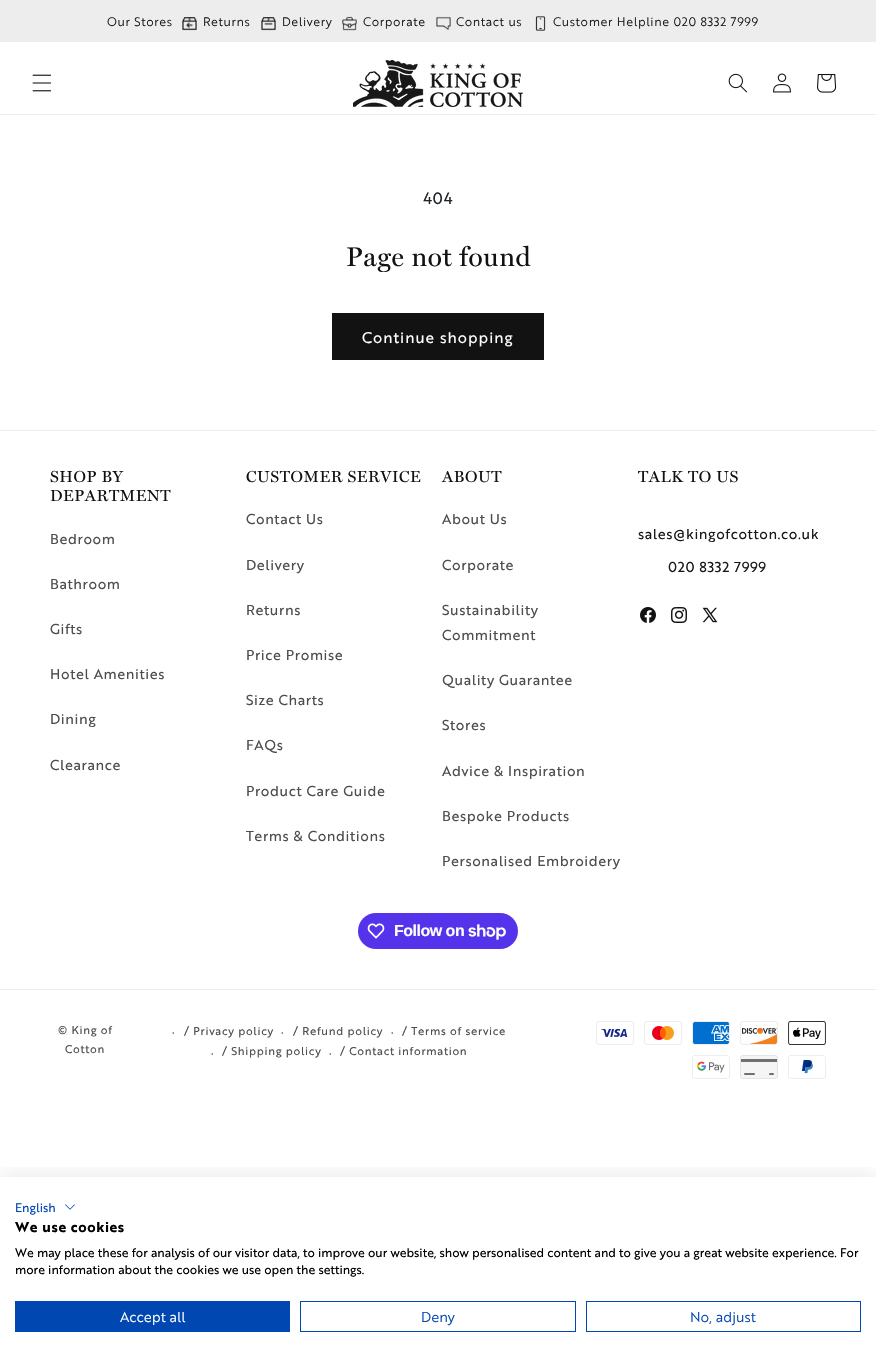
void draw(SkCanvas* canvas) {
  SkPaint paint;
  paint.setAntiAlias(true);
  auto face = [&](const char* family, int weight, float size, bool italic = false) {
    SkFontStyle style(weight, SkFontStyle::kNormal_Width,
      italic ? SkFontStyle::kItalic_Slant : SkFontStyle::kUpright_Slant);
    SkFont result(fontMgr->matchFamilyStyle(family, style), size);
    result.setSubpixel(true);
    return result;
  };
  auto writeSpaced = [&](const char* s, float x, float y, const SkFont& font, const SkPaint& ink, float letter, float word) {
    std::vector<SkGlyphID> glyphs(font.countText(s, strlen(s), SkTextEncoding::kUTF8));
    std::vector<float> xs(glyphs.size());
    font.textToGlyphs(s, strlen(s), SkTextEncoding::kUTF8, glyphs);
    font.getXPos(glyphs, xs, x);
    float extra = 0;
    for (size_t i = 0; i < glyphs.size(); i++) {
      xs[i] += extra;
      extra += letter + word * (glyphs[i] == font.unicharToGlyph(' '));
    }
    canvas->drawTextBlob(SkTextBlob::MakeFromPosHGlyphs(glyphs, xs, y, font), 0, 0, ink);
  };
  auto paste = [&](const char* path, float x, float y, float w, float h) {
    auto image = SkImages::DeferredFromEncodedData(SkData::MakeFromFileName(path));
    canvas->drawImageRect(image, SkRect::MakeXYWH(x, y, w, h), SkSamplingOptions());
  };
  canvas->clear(0xffffffff);
  paint.setColor(0xffededed);
  canvas->drawRect(SkRect::MakeXYWH(0, 0, 876, 42), paint);
  paste("img/1.png", 182, 17, 15, 14);
  paste("img/2.png", 261, 17, 15, 14);
  paste("img/3.png", 342, 16, 15, 15);
  paste("img/4.png", 436, 16, 15, 15);
  paste("img/5.png", 535, 16, 11, 15);
  paint.setColor(0xffececec);
  canvas->drawRect(SkRect::MakeXYWH(0, 114, 876, 1), paint);
  paste("img/6.png", 32, 74, 20, 18);
  paste("img/7.png", 353, 60, 170, 47);
  paste("img/8.png", 728, 73, 19, 20);
  paste("img/9.png", 773, 73, 18, 20);
  paste("img/10.png", 817, 74, 20, 19);
  paint.setColor(0xff121212);
  canvas->drawRect(SkRect::MakeXYWH(332, 313, 212, 47), paint);
  paint.setColor(0xffececec);
  canvas->drawRect(SkRect::MakeXYWH(0, 430, 876, 1), paint);
  paste("img/11.png", 640, 607, 16, 16);
  paste("img/12.png", 671, 607, 16, 16);
  paste("img/13.png", 702, 607, 16, 16);
  paint.setColor(0xff5433eb);
  canvas->drawRoundRect(SkRect::MakeXYWH(358, 913, 160, 36), 18, 18, paint);
  paste("img/14.png", 367, 923, 18, 16);
  paste("img/15.png", 468, 924, 38, 16);
  paint.setColor(0xffececec);
  canvas->drawRect(SkRect::MakeXYWH(0, 989, 876, 1), paint);
  paste("img/16.png", 596, 1021, 38, 24);
  paste("img/17.png", 644, 1021, 38, 24);
  paste("img/18.png", 692, 1021, 38, 24);
  paste("img/19.png", 740, 1021, 38, 24);
  paste("img/20.png", 788, 1021, 38, 24);
  paste("img/21.png", 692, 1055, 38, 24);
  paste("img/22.png", 740, 1055, 38, 24);
  paste("img/23.png", 788, 1055, 38, 24);
  canvas->save();
  canvas->clipRect(SkRect::MakeXYWH(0, 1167, 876, 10));
  paint.setColor(0x1a000000);
  paint.setMaskFilter(SkMaskFilter::MakeBlur(kNormal_SkBlurStyle, 12));
  canvas->drawRect(SkRect::MakeXYWH(0, 1177, 876, 182), paint);
  paint.setMaskFilter(nullptr);
  canvas->restore();
  paste("img/24.png", 65, 1204, 10, 6);
  paint.setColor(0xff0047b2);
  canvas->drawRect(SkRect::MakeXYWH(15, 1301, 275, 31), paint);
  paint.setStroke(true);
  paint.setStrokeWidth(1);
  canvas->drawRect(SkRect::MakeXYWH(300.5f, 1301.5f, 275, 30), paint);
  canvas->drawRect(SkRect::MakeXYWH(586.5f, 1301.5f, 274, 30), paint);
  auto f0 = face("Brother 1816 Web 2", 400, 12);
  paint.setStroke(false);
  paint.setColor(0xff191919);
  {
    const struct { const char* s; float x, y; } items[] = {
      {"Our Stores", 107, 26},
      {"Returns", 203, 26},
      {"Delivery", 282, 26},
      {"Corporate", 363, 26},
      {"Contact us", 456, 26},
      {"Customer Helpline 020 8332 7999", 553, 26},
    };
    for (auto [s, x, y] : items) {
      writeSpaced(s, x, y, f0, paint, 0.6f, 0);
    }
  }
  auto f1 = face("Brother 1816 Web", 400, 16);
  paint.setColor(0xff212529);
  writeSpaced("404", 423, 204, f1, paint, 0.6f, 0);
  auto f2 = face("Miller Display", 400, 27);
  paint.setColor(0xff121212);
  writeSpaced("Page not found", 346, 266, f2, paint, 0.6f, 0);
  auto f3 = face("Brother 1816 Web", 400, 15);
  paint.setColor(0xffffffff);
  writeSpaced("Continue shopping", 362, 343, f3, paint, 1, 0);
  auto f4 = face("Miller Display", 400, 16);
  paint.setColor(0xff121212);
  writeSpaced("SHOP BY", 50, 482, f4, paint, 0.6f, 0);
  writeSpaced("DEPARTMENT", 50, 501, f4, paint, 0.6f, 0);
  auto f5 = face("Brother 1816 Web", 400, 14);
  paint.setColor(0xff4d4d4d);
  {
    const struct { const char* s; float x, y; } items[] = {
      {"Bedroom", 50, 544},
      {"Bathroom", 50, 589},
      {"Gifts", 50, 634},
      {"Hotel Amenities", 50, 679},
      {"Dining", 50, 724},
      {"Clearance", 50, 770},
    };
    for (auto [s, x, y] : items) {
      writeSpaced(s, x, y, f5, paint, 0.6f, 0);
    }
  }
  paint.setColor(0xff121212);
  writeSpaced("CUSTOMER SERVICE", 246, 482, f4, paint, 0.6f, 0);
  paint.setColor(0xff4d4d4d);
  {
    const struct { const char* s; float x, y; } items[] = {
      {"Contact Us", 246, 524},
      {"Delivery", 246, 570},
      {"Returns", 246, 615},
      {"Price Promise", 246, 660},
      {"Size Charts", 246, 705},
      {"FAQs", 246, 750},
      {"Product Care Guide", 246, 796},
      {"Terms & Conditions", 246, 841},
    };
    for (auto [s, x, y] : items) {
      writeSpaced(s, x, y, f5, paint, 0.6f, 0);
    }
  }
  paint.setColor(0xff121212);
  writeSpaced("ABOUT", 442, 482, f4, paint, 0.6f, 0);
  paint.setColor(0xff4d4d4d);
  {
    const struct { const char* s; float x, y; } items[] = {
      {"About Us", 442, 524},
      {"Corporate", 442, 570},
      {"Sustainability", 442, 615},
      {"Commitment", 442, 640},
      {"Quality Guarantee", 442, 685},
      {"Stores", 442, 730},
      {"Advice & Inspiration", 442, 776},
      {"Bespoke Products", 442, 821},
      {"Personalised Embroidery", 442, 866},
    };
    for (auto [s, x, y] : items) {
      writeSpaced(s, x, y, f5, paint, 0.6f, 0);
    }
  }
  paint.setColor(0xff121212);
  writeSpaced("TALK TO US", 638, 482, f4, paint, 0.6f, 0);
  paint.setColor(0xff191919);
  writeSpaced("sales@kingofcotton.co.uk", 638, 539, f5, paint, 0.6f, 0);
  writeSpaced("020 8332 7999", 668, 572, f5, paint, 0.6f, 0);
  auto f6 = face("Liberation Sans", 700, 16);
  paint.setColor(0xffffffff);
  writeSpaced("Follow on", 394, 936, f6, paint, -0.5f, 0);
  auto f7 = face("Brother 1816 Web", 400, 11);
  paint.setColor(0xff4d4d4d);
  writeSpaced("© King of", 58, 1034, f7, paint, 0.7f, 0);
  writeSpaced("Cotton", 65, 1053, f7, paint, 0.7f, 0);
  auto f8 = face("Brother 1816 Web", 400, 12);
  writeSpaced("·", 172, 1036, f8, paint, 0.7f, 0);
  writeSpaced("/ Privacy policy", 184, 1035, f7, paint, 0.7f, 0);
  writeSpaced("·", 281, 1036, f8, paint, 0.7f, 0);
  writeSpaced("/ Refund policy", 293, 1035, f7, paint, 0.7f, 0);
  writeSpaced("·", 391, 1036, f8, paint, 0.7f, 0);
  writeSpaced("/ Terms of service", 402, 1035, f7, paint, 0.7f, 0);
  writeSpaced("·", 211, 1057, f8, paint, 0.7f, 0);
  writeSpaced("/ Shipping policy", 222, 1055, f7, paint, 0.7f, 0);
  writeSpaced("·", 329, 1057, f8, paint, 0.7f, 0);
  writeSpaced("/ Contact information", 340, 1055, f7, paint, 0.7f, 0);
  paint.setColor(0xff0047b2);
  canvas->drawString("English", 15, 1212, f8, paint);
  auto f9 = face("Brother 1816 Web", 700, 14);
  paint.setColor(0xff000000);
  writeSpaced("We use cookies", 15, 1232, f9, paint, 0.6f, 0);
  canvas->drawString("We may place these for analysis of our visitor data, to improve our website, show personalised content and to give you a great website experience. For", 15, 1257, f8, paint);
  canvas->drawString("more information about the cookies we use open the settings.", 15, 1274, f8, paint);
  auto f10 = face("Brother 1816 Web 2", 400, 14);
  paint.setColor(0xffffffff);
  canvas->drawString("Accept all", 120, 1322, f10, paint);
  paint.setColor(0xff0047b2);
  canvas->drawString("Deny", 421, 1322, f10, paint);
  canvas->drawString("No, adjust", 690, 1322, f10, paint);
}
